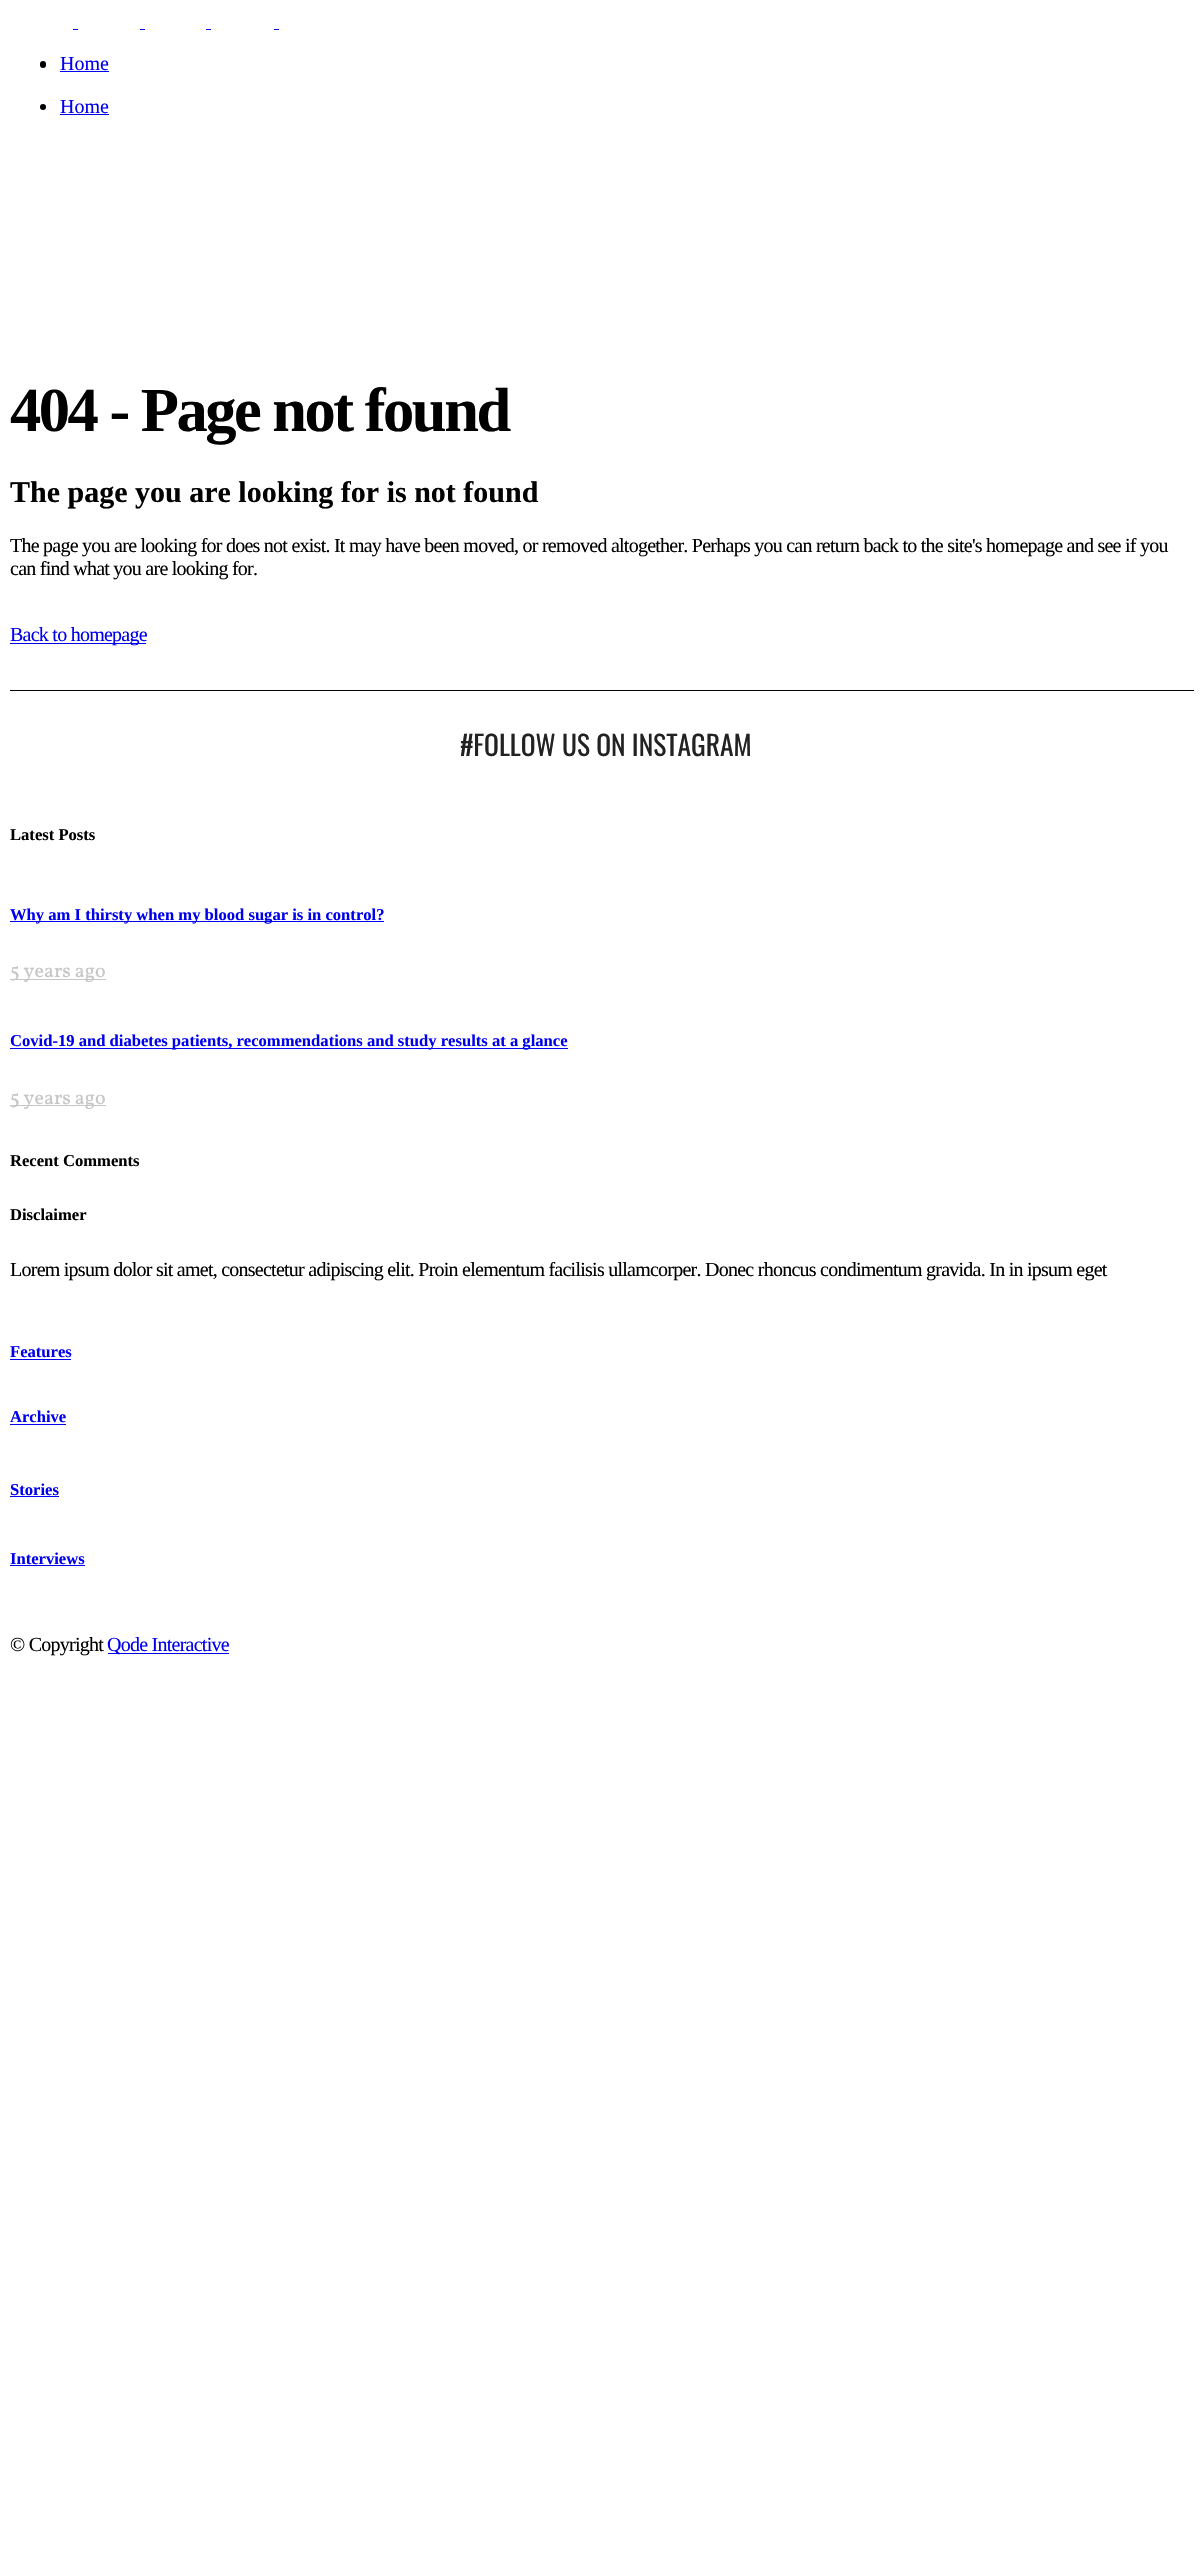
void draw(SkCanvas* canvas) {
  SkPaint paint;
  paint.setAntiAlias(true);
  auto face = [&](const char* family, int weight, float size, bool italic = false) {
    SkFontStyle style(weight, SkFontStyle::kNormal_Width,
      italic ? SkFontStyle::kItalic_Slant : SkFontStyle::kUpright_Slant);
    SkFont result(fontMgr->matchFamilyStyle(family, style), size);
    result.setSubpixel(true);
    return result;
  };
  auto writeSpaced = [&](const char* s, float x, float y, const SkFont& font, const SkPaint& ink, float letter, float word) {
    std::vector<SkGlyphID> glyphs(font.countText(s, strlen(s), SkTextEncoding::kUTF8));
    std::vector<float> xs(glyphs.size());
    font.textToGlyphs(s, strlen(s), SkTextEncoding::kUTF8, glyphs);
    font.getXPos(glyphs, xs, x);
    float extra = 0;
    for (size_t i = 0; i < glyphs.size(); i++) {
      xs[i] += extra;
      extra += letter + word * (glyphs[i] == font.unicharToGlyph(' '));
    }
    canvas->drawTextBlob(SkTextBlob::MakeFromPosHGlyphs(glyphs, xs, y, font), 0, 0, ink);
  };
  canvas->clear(0xffffffff);
  {
    const struct { float x, y, w, h; SkColor color; } items[] = {
      {73, 29, 5, 1, 0xff0000ee},
      {140, 29, 5, 1, 0xff0000ee},
      {206, 29, 5, 1, 0xff0000ee},
      {274, 29, 5, 1, 0xff0000ee},
    };
    for (auto [x, y, w, h, color] : items) {
      paint.setColor(color);
      canvas->drawRect(SkRect::MakeXYWH(x, y, w, h), paint);
    }
  }
  paint.setColor(0xff000000);
  canvas->drawRoundRect(SkRect::MakeXYWH(40, 61, 6, 7), 3, 3, paint);
  paint.setColor(0xff0000ee);
  canvas->drawRect(SkRect::MakeXYWH(60, 71, 49, 1), paint);
  paint.setColor(0xff000000);
  canvas->drawCircle(43, 107, 3, paint);
  {
    const struct { float x, y, w, h; SkColor color; } items[] = {
      {60, 114, 49, 1, 0xff0000ee},
      {10, 643, 136, 1, 0xff0000ee},
      {10, 690, 1184, 1, 0xff000000},
      {10, 921, 374, 1, 0xff0000ee},
      {10, 979, 96, 1, 0xffc6c6c6},
      {10, 1048, 558, 1, 0xff0000ee},
      {10, 1105, 96, 1, 0xffc6c6c6},
      {10, 1359, 61, 1, 0xff0000ee},
      {10, 1424, 56, 1, 0xff0000ee},
      {10, 1496, 49, 1, 0xff0000ee},
      {10, 1565, 75, 1, 0xff0000ee},
      {108, 1653, 121, 1, 0xff0000ee},
    };
    for (auto [x, y, w, h, color] : items) {
      paint.setColor(color);
      canvas->drawRect(SkRect::MakeXYWH(x, y, w, h), paint);
    }
  }
  auto f0 = face("Liberation Serif", 400, 20);
  canvas->drawString("Home", 60, 70, f0, paint);
  canvas->drawString("Home", 60, 113, f0, paint);
  auto f1 = face("Liberation Serif", 700, 62.5f);
  paint.setColor(0xff000000);
  writeSpaced("404 - Page not found", 10, 431, f1, paint, -2.5f, 0);
  auto f2 = face("Liberation Serif", 700, 30);
  canvas->drawString("The page you are looking for is not found", 10, 502, f2, paint);
  writeSpaced("The page you are looking for does not exist. It may have been moved, or removed altogether. Perhaps you can return back to the site's homepage and see if you", 10, 552, f0, paint, -0.75f, 0);
  writeSpaced("can find what you are looking for.", 10, 575, f0, paint, -0.75f, 0);
  paint.setColor(0xff0000ee);
  writeSpaced("Back to homepage", 10, 641, f0, paint, -0.75f, 0);
  auto f3 = face("Oswald", 400, 27.5f);
  paint.setColor(0xff222222);
  canvas->drawString("#FOLLOW US ON INSTAGRAM", 460, 756, f3, paint);
  auto f4 = face("Liberation Serif", 700, 16.6f);
  paint.setColor(0xff000000);
  canvas->drawString("Latest Posts", 10, 840, f4, paint);
  paint.setColor(0xff0000ee);
  canvas->drawString("Why am I thirsty when my blood sugar is in control?", 10, 920, f4, paint);
  auto f5 = face("Vollkorn", 400, 20);
  paint.setColor(0xffc6c6c6);
  canvas->drawString("5 years ago", 10, 977, f5, paint);
  paint.setColor(0xff0000ee);
  canvas->drawString("Covid-19 and diabetes patients, recommendations and study results at a glance", 10, 1046, f4, paint);
  paint.setColor(0xffc6c6c6);
  canvas->drawString("5 years ago", 10, 1104, f5, paint);
  paint.setColor(0xff000000);
  canvas->drawString("Recent Comments", 10, 1166, f4, paint);
  canvas->drawString("Disclaimer", 10, 1220, f4, paint);
  writeSpaced("Lorem ipsum dolor sit amet, consectetur adipiscing elit. Proin elementum facilisis ullamcorper. Donec rhoncus condimentum gravida. In in ipsum eget", 10, 1276, f0, paint, -0.75f, 0);
  paint.setColor(0xff0000ee);
  {
    const struct { const char* s; float x, y; } items[] = {
      {"Features", 10, 1357},
      {"Archive", 10, 1422},
      {"Stories", 10, 1495},
      {"Interviews", 10, 1564},
    };
    for (auto [s, x, y] : items) {
      canvas->drawString(s, x, y, f4, paint);
    }
  }
  paint.setColor(0xff000000);
  writeSpaced("© Copyright", 10, 1651, f0, paint, -0.75f, 0);
  paint.setColor(0xff0000ee);
  writeSpaced("Qode Interactive", 107, 1651, f0, paint, -0.75f, 0);
}
